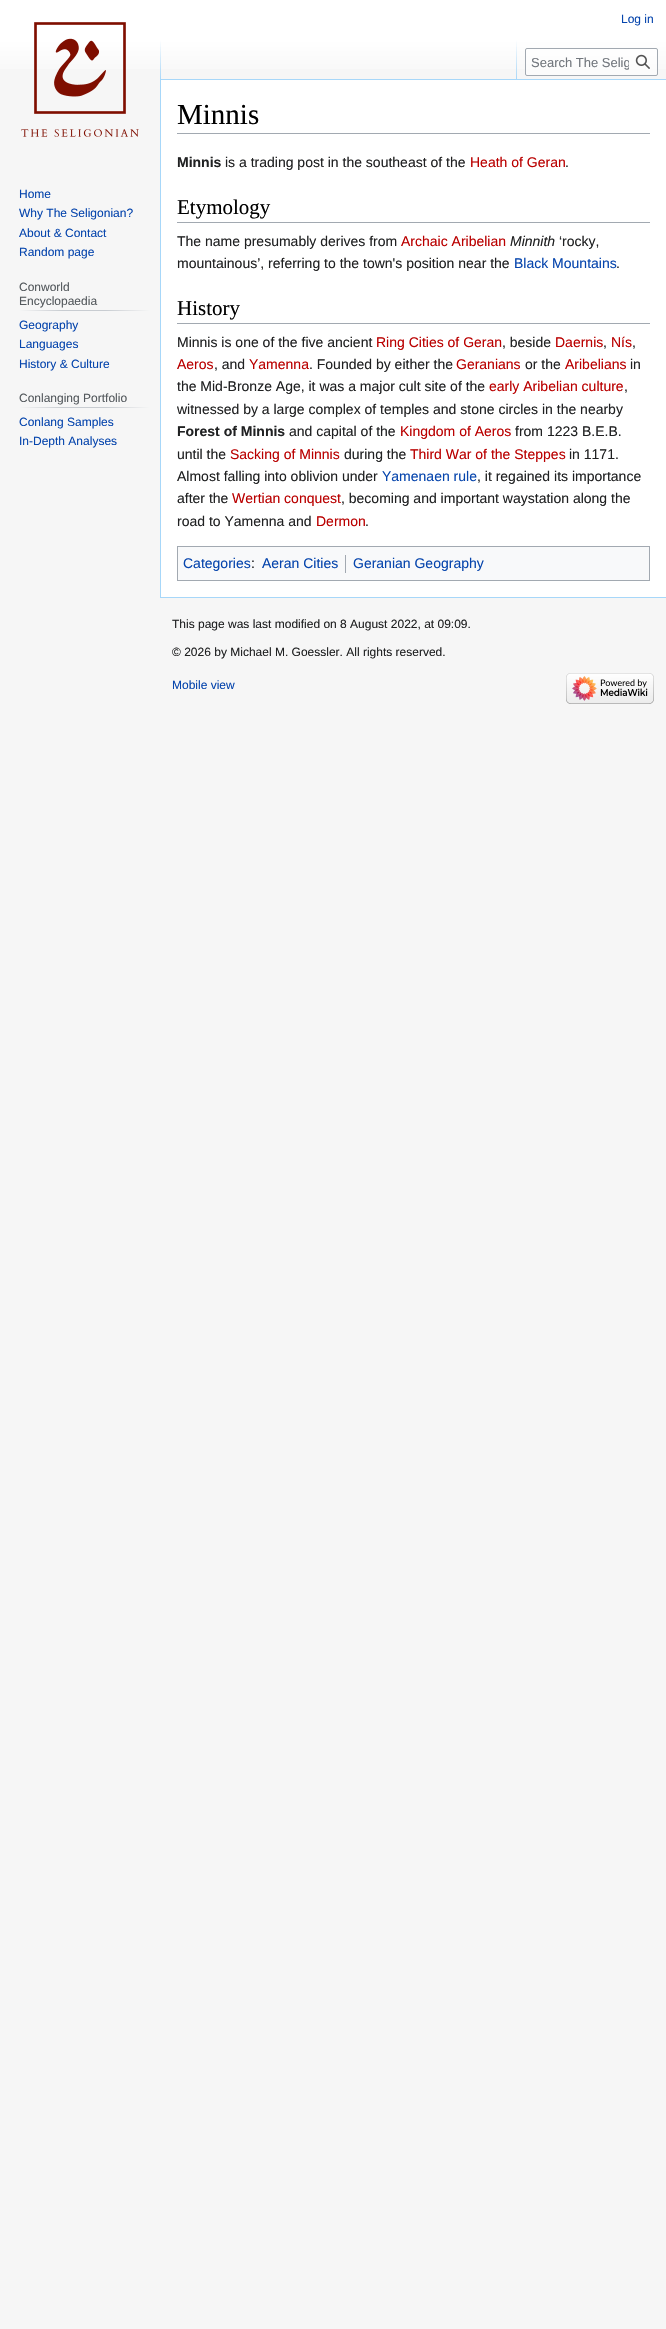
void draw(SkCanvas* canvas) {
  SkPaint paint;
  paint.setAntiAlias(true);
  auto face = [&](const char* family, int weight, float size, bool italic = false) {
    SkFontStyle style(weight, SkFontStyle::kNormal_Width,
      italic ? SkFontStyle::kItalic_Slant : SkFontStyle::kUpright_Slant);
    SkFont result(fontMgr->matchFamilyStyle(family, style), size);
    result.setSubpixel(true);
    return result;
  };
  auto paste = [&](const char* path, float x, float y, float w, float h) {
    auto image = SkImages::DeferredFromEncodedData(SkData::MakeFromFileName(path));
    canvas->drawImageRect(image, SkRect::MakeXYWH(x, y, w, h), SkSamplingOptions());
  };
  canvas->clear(0xfff6f6f6);
  {
    const SkColor colors[] = {0xffffffff, 0xfff6f6f6};
    const float stops[] = {0.5f, 1};
    const SkPoint ends[] = {{333, 0}, {333, 80}};
    paint.setShader(SkGradientShader::MakeLinear(ends, colors, stops, 2, SkTileMode::kClamp));
    paint.setAlpha(255);
  }
  canvas->drawRect(SkRect::MakeXYWH(0, 0, 666, 69), paint);
  paint.setShader(nullptr);
  {
    const struct { float x, y, w, h; SkColor color; } items[] = {
      {160, 79, 506, 1, 0xffa7d7f9},
      {160, 597, 506, 1, 0xffa7d7f9},
      {160, 79, 1, 519, 0xffa7d7f9},
    };
    for (auto [x, y, w, h, color] : items) {
      paint.setColor(color);
      canvas->drawRect(SkRect::MakeXYWH(x, y, w, h), paint);
    }
  }
  {
    const SkColor colors[] = {0x00a7d7f9, 0xffa7d7f9};
    const float stops[] = {0, 1};
    const SkPoint ends[] = {{161, 40}, {161, 80}};
    paint.setShader(SkGradientShader::MakeLinear(ends, colors, stops, 2, SkTileMode::kClamp));
    paint.setAlpha(255);
  }
  canvas->drawRect(SkRect::MakeXYWH(160, 40, 1, 40), paint);
  {
    const SkColor colors[] = {0x00a7d7f9, 0xffa7d7f9};
    const float stops[] = {0, 1};
    const SkPoint ends[] = {{517, 40}, {517, 80}};
    paint.setShader(SkGradientShader::MakeLinear(ends, colors, stops, 2, SkTileMode::kClamp));
    paint.setAlpha(255);
  }
  canvas->drawRect(SkRect::MakeXYWH(516, 40, 1, 40), paint);
  paint.setShader(nullptr);
  paint.setColor(0x80ffffff);
  canvas->drawRoundRect(SkRect::MakeXYWH(525.5f, 48.5f, 132, 27), 1.5f, 1.5f, paint);
  paint.setStroke(true);
  paint.setStrokeWidth(1);
  paint.setColor(0xffa2a9b1);
  canvas->drawRoundRect(SkRect::MakeXYWH(525.5f, 48.5f, 132, 27), 1.5f, 1.5f, paint);
  paste("img/1.png", 635, 54, 15, 15);
  paste("img/2.png", 21, 22, 118, 115);
  paint.setStroke(false);
  {
    const SkColor colors[] = {0xfff6f6f6, 0xffc8ccd1, 0xffc8ccd1, 0xfff6f6f6};
    const float stops[] = {0, 0.33f, 0.66f, 1};
    const SkPoint ends[] = {{19, 311}, {150, 311}};
    paint.setShader(SkGradientShader::MakeLinear(ends, colors, stops, 4, SkTileMode::kClamp));
    paint.setAlpha(255);
  }
  canvas->drawRect(SkRect::MakeXYWH(19, 310, 131, 1), paint);
  {
    const SkColor colors[] = {0xfff6f6f6, 0xffc8ccd1, 0xffc8ccd1, 0xfff6f6f6};
    const float stops[] = {0, 0.33f, 0.66f, 1};
    const SkPoint ends[] = {{19, 408}, {150, 408}};
    paint.setShader(SkGradientShader::MakeLinear(ends, colors, stops, 4, SkTileMode::kClamp));
    paint.setAlpha(255);
  }
  canvas->drawRect(SkRect::MakeXYWH(19, 407, 131, 1), paint);
  paint.setShader(nullptr);
  {
    const struct { float x, y, w, h; SkColor color; } items[] = {
      {161, 80, 505, 517, 0xffffffff},
      {177, 133, 473, 1, 0xffa2a9b1},
      {177, 222, 473, 1, 0xffa2a9b1},
      {177, 323, 473, 1, 0xffa2a9b1},
    };
    for (auto [x, y, w, h, color] : items) {
      paint.setColor(color);
      canvas->drawRect(SkRect::MakeXYWH(x, y, w, h), paint);
    }
  }
  paint.setColor(0xfff8f9fa);
  canvas->drawRect(SkRect::MakeXYWH(177.5f, 546.5f, 472, 34), paint);
  paint.setStroke(true);
  paint.setColor(0xffa2a9b1);
  canvas->drawRect(SkRect::MakeXYWH(177.5f, 546.5f, 472, 34), paint);
  paint.setStroke(false);
  canvas->drawRect(SkRect::MakeXYWH(345, 555, 1, 18), paint);
  paste("img/3.png", 566, 673, 88, 31);
  auto f0 = face("Liberation Sans", 400, 12);
  paint.setColor(0xff0645ad);
  canvas->drawString("Log in", 621, 23, f0, paint);
  canvas->save();
  canvas->clipRect(SkRect::MakeXYWH(531, 55, 98, 15));
  auto f1 = face("Liberation Sans", 400, 13);
  paint.setColor(0xff72777d);
  canvas->drawString("Search The Selig", 531, 67, f1, paint);
  canvas->restore();
  paint.setColor(0xff0645ad);
  {
    const struct { const char* s; float x, y; } items[] = {
      {"Home", 19, 198},
      {"Why The Seligonian?", 19, 217},
      {"About & Contact", 19, 237},
      {"Random page", 19, 256},
    };
    for (auto [s, x, y] : items) {
      canvas->drawString(s, x, y, f0, paint);
    }
  }
  paint.setColor(0xff54595d);
  canvas->drawString("Conworld", 19, 291, f0, paint);
  canvas->drawString("Encyclopaedia", 19, 305, f0, paint);
  paint.setColor(0xff0645ad);
  {
    const struct { const char* s; float x, y; } items[] = {
      {"Geography", 19, 329},
      {"Languages", 19, 348},
      {"History & Culture", 19, 368},
    };
    for (auto [s, x, y] : items) {
      canvas->drawString(s, x, y, f0, paint);
    }
  }
  paint.setColor(0xff54595d);
  canvas->drawString("Conlanging Portfolio", 19, 402, f0, paint);
  paint.setColor(0xff0645ad);
  canvas->drawString("Conlang Samples", 19, 426, f0, paint);
  canvas->drawString("In-Depth Analyses", 19, 445, f0, paint);
  auto f2 = face("Liberation Serif", 400, 29);
  paint.setColor(0xff000000);
  canvas->drawString("Minnis", 177, 124, f2, paint);
  auto f3 = face("Liberation Sans", 700, 14);
  paint.setColor(0xff202122);
  canvas->drawString("Minnis", 177, 167, f3, paint);
  auto f4 = face("Liberation Sans", 400, 14);
  canvas->drawString("is a trading post in the southeast of the", 225, 167, f4, paint);
  paint.setColor(0xffba0000);
  canvas->drawString("Heath of Geran", 470, 167, f4, paint);
  paint.setColor(0xff202122);
  canvas->drawString(".", 565, 167, f4, paint);
  auto f5 = face("Liberation Serif", 400, 21);
  paint.setColor(0xff000000);
  canvas->drawString("Etymology", 177, 214, f5, paint);
  paint.setColor(0xff202122);
  canvas->drawString("The name presumably derives from", 177, 246, f4, paint);
  paint.setColor(0xffba0000);
  canvas->drawString("Archaic Aribelian", 401, 246, f4, paint);
  auto f6 = face("Liberation Sans", 400, 14, true);
  paint.setColor(0xff202122);
  canvas->drawString("Minnith", 510, 246, f6, paint);
  canvas->drawString("‘rocky,", 559, 246, f4, paint);
  canvas->drawString("mountainous’, referring to the town's position near the", 177, 268, f4, paint);
  paint.setColor(0xff0645ad);
  canvas->drawString("Black Mountains", 514, 268, f4, paint);
  paint.setColor(0xff202122);
  canvas->drawString(".", 616, 268, f4, paint);
  paint.setColor(0xff000000);
  canvas->drawString("History", 177, 315, f5, paint);
  paint.setColor(0xff202122);
  canvas->drawString("Minnis is one of the five ancient", 177, 347, f4, paint);
  paint.setColor(0xffba0000);
  canvas->drawString("Ring Cities of Geran", 376, 347, f4, paint);
  paint.setColor(0xff202122);
  canvas->drawString(", beside", 502, 347, f4, paint);
  paint.setColor(0xffba0000);
  canvas->drawString("Daernis", 555, 347, f4, paint);
  paint.setColor(0xff202122);
  canvas->drawString(",", 603, 347, f4, paint);
  paint.setColor(0xffba0000);
  canvas->drawString("Nís", 611, 347, f4, paint);
  paint.setColor(0xff202122);
  canvas->drawString(",", 632, 347, f4, paint);
  paint.setColor(0xffba0000);
  canvas->drawString("Aeros", 177, 369, f4, paint);
  paint.setColor(0xff202122);
  canvas->drawString(", and", 214, 369, f4, paint);
  paint.setColor(0xffba0000);
  canvas->drawString("Yamenna", 249, 369, f4, paint);
  paint.setColor(0xff202122);
  canvas->drawString(". Founded by either the", 309, 369, f4, paint);
  paint.setColor(0xffba0000);
  canvas->drawString("Geranians", 456, 369, f4, paint);
  paint.setColor(0xff202122);
  canvas->drawString("or the", 525, 369, f4, paint);
  paint.setColor(0xffba0000);
  canvas->drawString("Aribelians", 565, 369, f4, paint);
  paint.setColor(0xff202122);
  canvas->drawString("in", 630, 369, f4, paint);
  canvas->drawString("the Mid-Bronze Age, it was a major cult site of the", 177, 391, f4, paint);
  paint.setColor(0xffba0000);
  canvas->drawString("early Aribelian culture", 489, 391, f4, paint);
  paint.setColor(0xff202122);
  canvas->drawString(",", 624, 391, f4, paint);
  canvas->drawString("witnessed by a large complex of temples and stone circles in the nearby", 177, 414, f4, paint);
  canvas->drawString("Forest of Minnis", 177, 436, f3, paint);
  canvas->drawString("and capital of the", 289, 436, f4, paint);
  paint.setColor(0xffba0000);
  canvas->drawString("Kingdom of Aeros", 400, 436, f4, paint);
  paint.setColor(0xff202122);
  canvas->drawString("from 1223 B.E.B.", 515, 436, f4, paint);
  canvas->drawString("until the", 177, 459, f4, paint);
  paint.setColor(0xffba0000);
  canvas->drawString("Sacking of Minnis", 230, 459, f4, paint);
  paint.setColor(0xff202122);
  canvas->drawString("during the", 344, 459, f4, paint);
  paint.setColor(0xffba0000);
  canvas->drawString("Third War of the Steppes", 410, 459, f4, paint);
  paint.setColor(0xff202122);
  canvas->drawString("in 1171.", 569, 459, f4, paint);
  canvas->drawString("Almost falling into oblivion under", 177, 481, f4, paint);
  paint.setColor(0xff0645ad);
  canvas->drawString("Yamenaen rule", 382, 481, f4, paint);
  paint.setColor(0xff202122);
  canvas->drawString(", it regained its importance", 477, 481, f4, paint);
  canvas->drawString("after the", 177, 503, f4, paint);
  paint.setColor(0xffba0000);
  canvas->drawString("Wertian conquest", 232, 503, f4, paint);
  paint.setColor(0xff202122);
  canvas->drawString(", becoming and important waystation along the", 341, 503, f4, paint);
  canvas->drawString("road to Yamenna and", 177, 526, f4, paint);
  paint.setColor(0xffba0000);
  canvas->drawString("Dermon", 316, 526, f4, paint);
  paint.setColor(0xff202122);
  canvas->drawString(".", 365, 526, f4, paint);
  paint.setColor(0xff0645ad);
  canvas->drawString("Categories", 183, 568, f4, paint);
  paint.setColor(0xff202122);
  canvas->drawString(":", 251, 568, f4, paint);
  paint.setColor(0xff0645ad);
  canvas->drawString("Aeran Cities", 262, 568, f4, paint);
  canvas->drawString("Geranian Geography", 353, 568, f4, paint);
  paint.setColor(0xff202122);
  canvas->drawString("This page was last modified on 8 August 2022, at 09:09.", 172, 628, f0, paint);
  canvas->drawString("© 2026 by Michael M. Goessler. All rights reserved.", 172, 656, f0, paint);
  paint.setColor(0xff0645ad);
  canvas->drawString("Mobile view", 172, 689, f0, paint);
}
